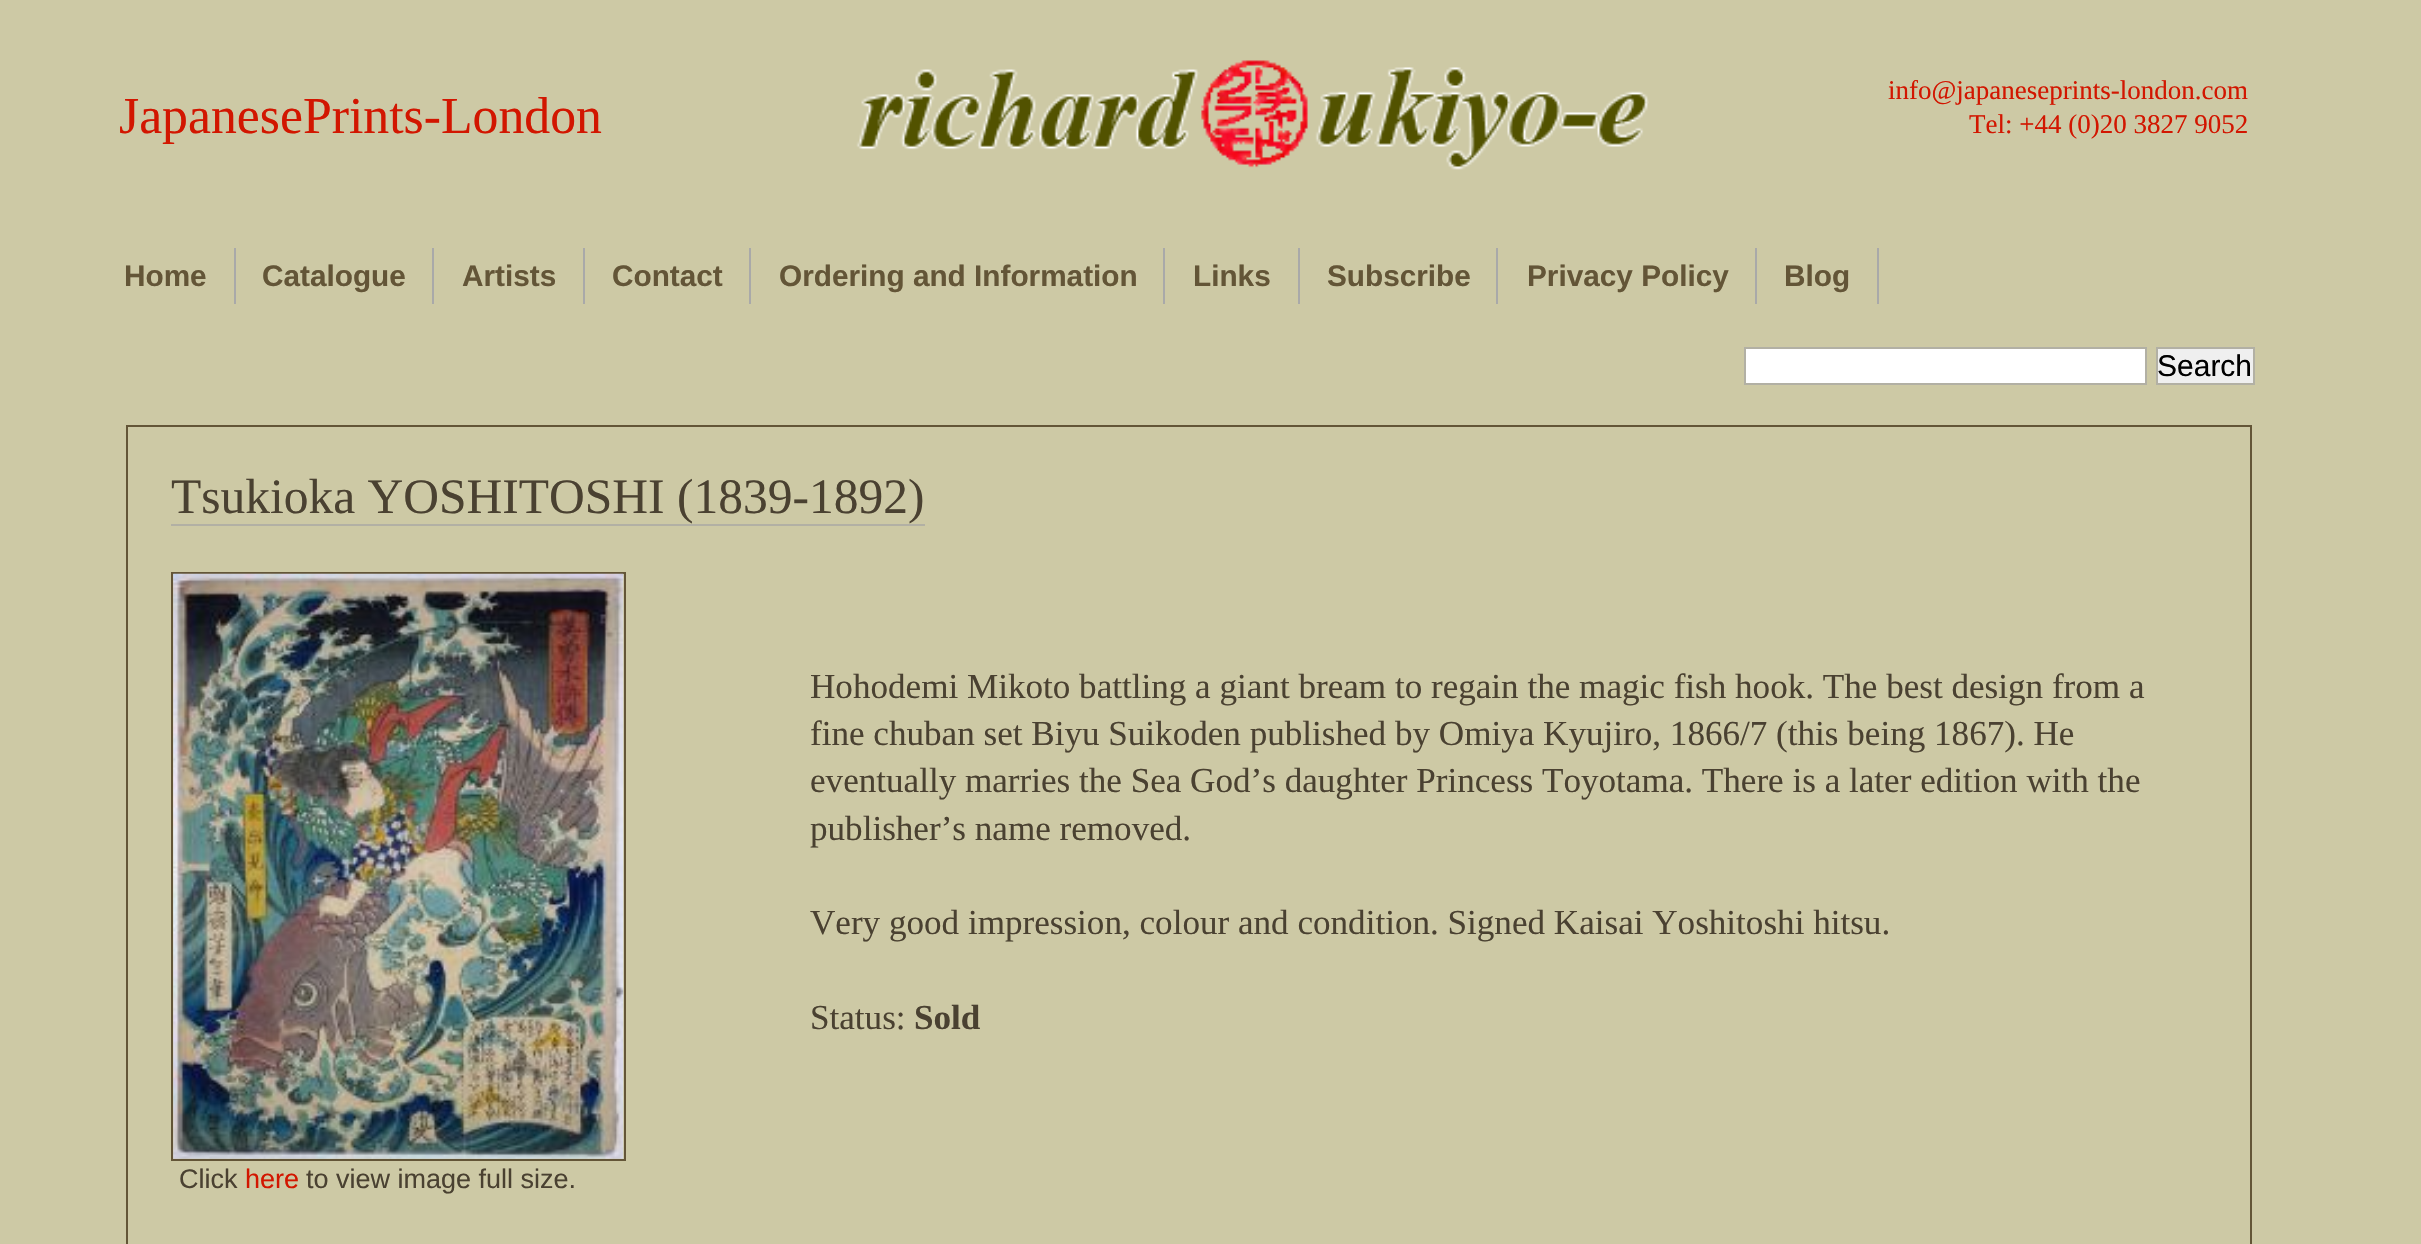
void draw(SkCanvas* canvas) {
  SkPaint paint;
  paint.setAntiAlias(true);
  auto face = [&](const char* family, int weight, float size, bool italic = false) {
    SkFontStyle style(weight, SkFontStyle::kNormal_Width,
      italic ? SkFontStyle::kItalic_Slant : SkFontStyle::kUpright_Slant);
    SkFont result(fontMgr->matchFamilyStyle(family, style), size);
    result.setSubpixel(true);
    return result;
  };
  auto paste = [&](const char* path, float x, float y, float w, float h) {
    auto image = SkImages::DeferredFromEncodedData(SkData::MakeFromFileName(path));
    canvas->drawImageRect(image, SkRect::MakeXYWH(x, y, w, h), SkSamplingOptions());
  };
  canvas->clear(0xffcdc9a5);
  paste("img/1.png", 856, 60, 793, 110);
  {
    const struct { float x, y, w, h; SkColor color; } items[] = {
      {234, 248, 2, 56, 0xffa9a9a9},
      {432, 248, 2, 56, 0xffa9a9a9},
      {583, 248, 2, 56, 0xffa9a9a9},
      {749, 248, 2, 56, 0xffa9a9a9},
      {1163, 248, 2, 56, 0xffa9a9a9},
      {1298, 248, 2, 56, 0xffa9a9a9},
      {1496, 248, 2, 56, 0xffa9a9a9},
      {1755, 248, 2, 56, 0xffa9a9a9},
      {1877, 248, 2, 56, 0xffa9a9a9},
    };
    for (auto [x, y, w, h, color] : items) {
      paint.setColor(color);
      canvas->drawRect(SkRect::MakeXYWH(x, y, w, h), paint);
    }
  }
  paint.setColor(0xffffffff);
  canvas->drawRect(SkRect::MakeXYWH(1745, 348, 401, 36), paint);
  paint.setStroke(true);
  paint.setStrokeWidth(2);
  paint.setColor(0xffb2b0a4);
  canvas->drawRect(SkRect::MakeXYWH(1745, 348, 401, 36), paint);
  paint.setStroke(false);
  paint.setColor(0xffefefef);
  canvas->drawRect(SkRect::MakeXYWH(2157, 348, 97, 36), paint);
  paint.setStroke(true);
  paint.setColor(0xffb2b0a4);
  canvas->drawRect(SkRect::MakeXYWH(2157, 348, 97, 36), paint);
  paint.setColor(0xff635537);
  canvas->drawRect(SkRect::MakeXYWH(127, 426, 2124, 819), paint);
  paint.setStroke(false);
  paint.setColor(0xffb2b0a4);
  canvas->drawRect(SkRect::MakeXYWH(171, 524, 754, 2), paint);
  paint.setStroke(true);
  paint.setColor(0xff635537);
  canvas->drawRect(SkRect::MakeXYWH(172, 573, 453, 587), paint);
  paste("img/2.png", 173, 573, 451, 586);
  auto f0 = face("Liberation Serif", 400, 51.75f);
  paint.setStroke(false);
  paint.setColor(0xffd21600);
  canvas->drawString("JapanesePrints-London", 119, 133, f0, paint);
  auto f1 = face("Liberation Serif", 400, 27);
  canvas->drawString("info@japaneseprints-london.com", 1888, 99, f1, paint);
  canvas->drawString("Tel: +44 (0)20 3827 9052", 1969, 133, f1, paint);
  auto f2 = face("Liberation Sans", 700, 29.75f);
  paint.setColor(0xff635537);
  {
    const struct { const char* s; float x, y; } items[] = {
      {"Home", 124, 286},
      {"Catalogue", 262, 286},
      {"Artists", 462, 286},
      {"Contact", 612, 286},
      {"Ordering and Information", 779, 286},
      {"Links", 1193, 286},
      {"Subscribe", 1327, 286},
      {"Privacy Policy", 1527, 286},
      {"Blog", 1784, 286},
    };
    for (auto [s, x, y] : items) {
      canvas->drawString(s, x, y, f2, paint);
    }
  }
  auto f3 = face("Liberation Sans", 400, 30);
  paint.setColor(0xff000000);
  canvas->drawString("Search", 2157, 376, f3, paint);
  auto f4 = face("Liberation Serif", 400, 49.5f);
  paint.setColor(0xff4a4131);
  canvas->drawString("Tsukioka YOSHITOSHI (1839-1892)", 171, 513, f4, paint);
  auto f5 = face("Liberation Serif", 400, 35.1f);
  {
    const struct { const char* s; float x, y; } items[] = {
      {"Hohodemi Mikoto battling a giant bream to regain the magic fish hook. The best design from a", 810, 698},
      {"fine chuban set Biyu Suikoden published by Omiya Kyujiro, 1866/7 (this being 1867). He", 810, 745},
      {"eventually marries the Sea God’s daughter Princess Toyotama. There is a later edition with the", 810, 792},
      {"publisher’s name removed.", 810, 840},
      {"Very good impression, colour and condition. Signed Kaisai Yoshitoshi hitsu.", 810, 934},
      {"Status:", 810, 1029},
    };
    for (auto [s, x, y] : items) {
      canvas->drawString(s, x, y, f5, paint);
    }
  }
  auto f6 = face("Liberation Serif", 700, 35.1f);
  canvas->drawString("Sold", 914, 1029, f6, paint);
  auto f7 = face("Liberation Sans", 400, 27);
  canvas->drawString("Click", 179, 1188, f7, paint);
  paint.setColor(0xffd21600);
  canvas->drawString("here", 245, 1188, f7, paint);
  paint.setColor(0xff4a4131);
  canvas->drawString("to view image full size.", 306, 1188, f7, paint);
}
